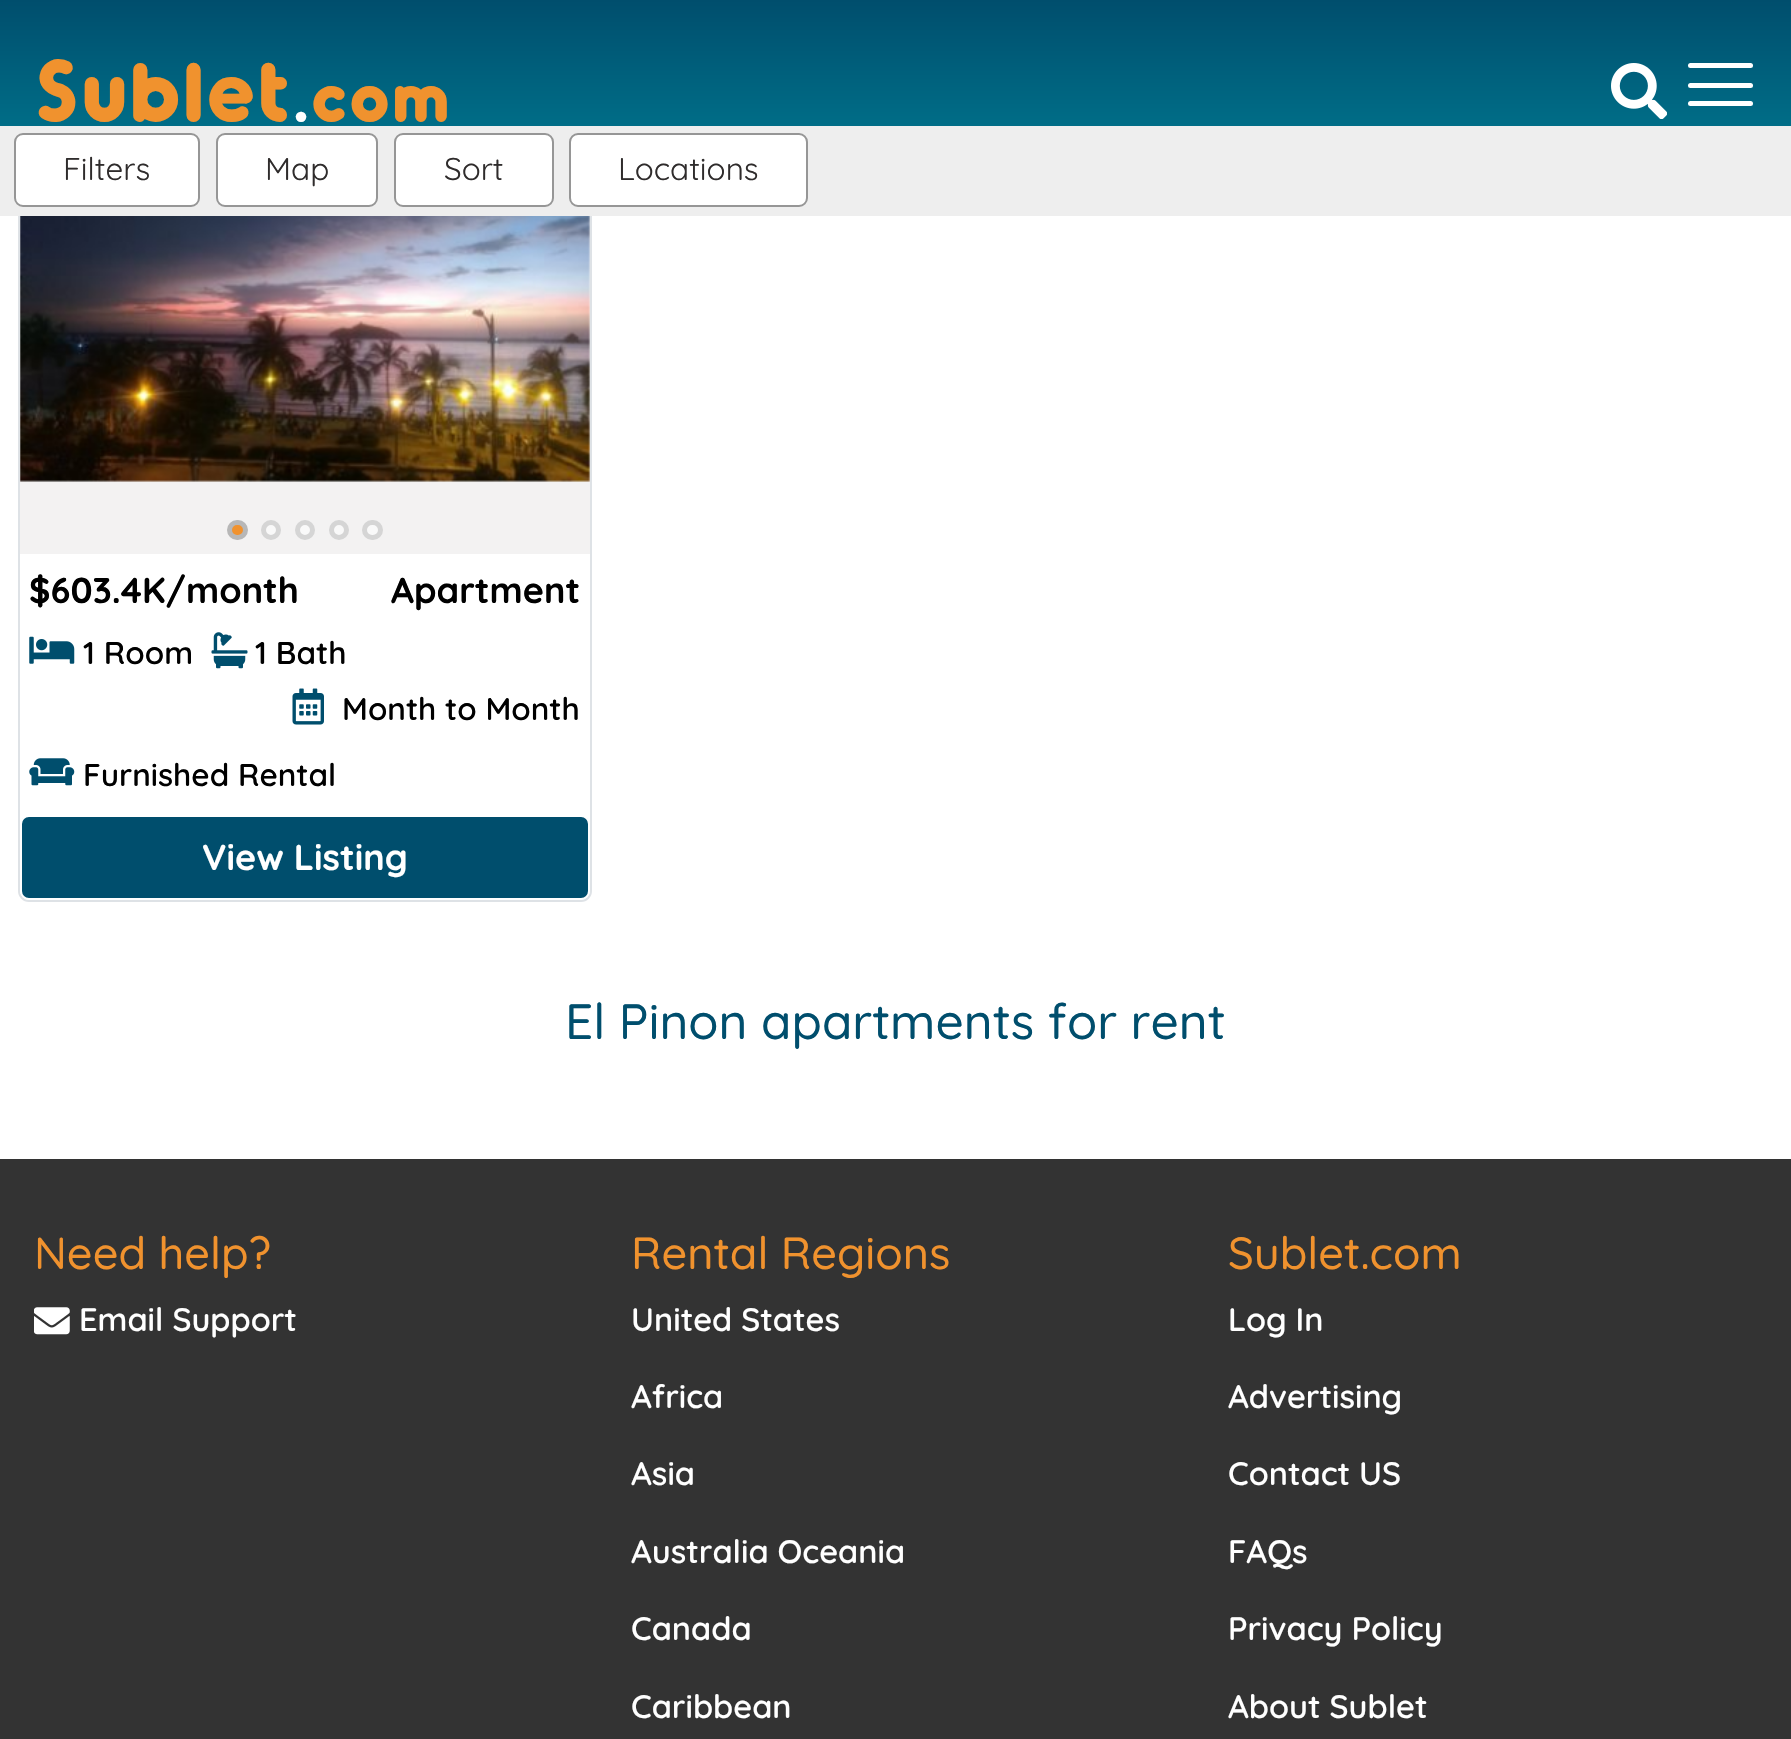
void draw(SkCanvas* canvas) {
  SkPaint paint;
  paint.setAntiAlias(true);
  auto face = [&](const char* family, int weight, float size, bool italic = false) {
    SkFontStyle style(weight, SkFontStyle::kNormal_Width,
      italic ? SkFontStyle::kItalic_Slant : SkFontStyle::kUpright_Slant);
    SkFont result(fontMgr->matchFamilyStyle(family, style), size);
    result.setSubpixel(true);
    return result;
  };
  auto writeSpaced = [&](const char* s, float x, float y, const SkFont& font, const SkPaint& ink, float letter, float word) {
    std::vector<SkGlyphID> glyphs(font.countText(s, strlen(s), SkTextEncoding::kUTF8));
    std::vector<float> xs(glyphs.size());
    font.textToGlyphs(s, strlen(s), SkTextEncoding::kUTF8, glyphs);
    font.getXPos(glyphs, xs, x);
    float extra = 0;
    for (size_t i = 0; i < glyphs.size(); i++) {
      xs[i] += extra;
      extra += letter + word * (glyphs[i] == font.unicharToGlyph(' '));
    }
    canvas->drawTextBlob(SkTextBlob::MakeFromPosHGlyphs(glyphs, xs, y, font), 0, 0, ink);
  };
  auto paste = [&](const char* path, float x, float y, float w, float h) {
    auto image = SkImages::DeferredFromEncodedData(SkData::MakeFromFileName(path));
    canvas->drawImageRect(image, SkRect::MakeXYWH(x, y, w, h), SkSamplingOptions());
  };
  canvas->clear(0xffffffff);
  paint.setStroke(true);
  paint.setStrokeWidth(2);
  paint.setColor(0xffdee2e6);
  canvas->drawRoundRect(SkRect::MakeXYWH(19, 89, 572, 812), 10, 10, paint);
  paint.setStroke(false);
  {
    const SkColor colors[] = {0xff004e6d, 0xff006d87};
    const float stops[] = {0, 1};
    const SkPoint ends[] = {{0, 0}, {0, 126}};
    paint.setShader(SkGradientShader::MakeLinear(ends, colors, stops, 2, SkTileMode::kClamp));
    paint.setAlpha(255);
  }
  canvas->drawRect(SkRect::MakeXYWH(0, 0, 1791, 126), paint);
  paste("img/1.png", 1611, 63, 56, 56);
  paint.setShader(nullptr);
  paint.setColor(0xffffffff);
  canvas->drawRoundRect(SkRect::MakeXYWH(1688, 63, 65, 5), 2.5f, 2.5f, paint);
  canvas->drawRoundRect(SkRect::MakeXYWH(1688, 83, 65, 5), 2.5f, 2.5f, paint);
  canvas->drawRoundRect(SkRect::MakeXYWH(1688, 101, 65, 5), 2.5f, 2.5f, paint);
  paint.setColor(0xffeeeeee);
  canvas->drawRect(SkRect::MakeXYWH(0, 126, 1791, 90), paint);
  paint.setColor(0xffffffff);
  canvas->drawRoundRect(SkRect::MakeXYWH(15, 134, 184, 72), 8, 8, paint);
  paint.setStroke(true);
  paint.setColor(0xff969696);
  canvas->drawRoundRect(SkRect::MakeXYWH(15, 134, 184, 72), 8, 8, paint);
  paint.setStroke(false);
  paint.setColor(0xffffffff);
  canvas->drawRoundRect(SkRect::MakeXYWH(217, 134, 160, 72), 8, 8, paint);
  paint.setStroke(true);
  paint.setColor(0xff969696);
  canvas->drawRoundRect(SkRect::MakeXYWH(217, 134, 160, 72), 8, 8, paint);
  paint.setStroke(false);
  paint.setColor(0xffffffff);
  canvas->drawRoundRect(SkRect::MakeXYWH(395, 134, 158, 72), 8, 8, paint);
  paint.setStroke(true);
  paint.setColor(0xff969696);
  canvas->drawRoundRect(SkRect::MakeXYWH(395, 134, 158, 72), 8, 8, paint);
  paint.setStroke(false);
  paint.setColor(0xffffffff);
  canvas->drawRoundRect(SkRect::MakeXYWH(570, 134, 237, 72), 8, 8, paint);
  paint.setStroke(true);
  paint.setColor(0xff969696);
  canvas->drawRoundRect(SkRect::MakeXYWH(570, 134, 237, 72), 8, 8, paint);
  paint.setStroke(false);
  paint.setColor(0x33c1c0c0);
  canvas->drawRect(SkRect::MakeXYWH(20, 216, 570, 338), paint);
  paste("img/2.png", 20, 216, 570, 266);
  paint.setColor(0xfff0922e);
  canvas->drawRoundRect(SkRect::MakeXYWH(229.5f, 522.5f, 16, 15), 7.5f, 7.5f, paint);
  paint.setStroke(true);
  paint.setStrokeWidth(5);
  paint.setColor(0xffb7b7b7);
  canvas->drawRoundRect(SkRect::MakeXYWH(229.5f, 522.5f, 16, 15), 7.5f, 7.5f, paint);
  paint.setStroke(false);
  paint.setColor(0xfff9f9f9);
  canvas->drawCircle(271, 530, 7.5f, paint);
  paint.setStroke(true);
  paint.setColor(0xffd5d5d5);
  canvas->drawCircle(271, 530, 7.5f, paint);
  paint.setStroke(false);
  paint.setColor(0xfff9f9f9);
  canvas->drawRect(SkRect::MakeXYWH(300, 525, 10, 10), paint);
  paint.setStroke(true);
  paint.setColor(0xffd5d5d5);
  canvas->drawCircle(305, 530, 7.5f, paint);
  paint.setStroke(false);
  paint.setColor(0xfff9f9f9);
  canvas->drawCircle(339, 530, 7.5f, paint);
  paint.setStroke(true);
  paint.setColor(0xffd5d5d5);
  canvas->drawCircle(339, 530, 7.5f, paint);
  paint.setStroke(false);
  paint.setColor(0xfff9f9f9);
  canvas->drawRoundRect(SkRect::MakeXYWH(364.5f, 522.5f, 16, 15), 7.5f, 7.5f, paint);
  paint.setStroke(true);
  paint.setColor(0xffd5d5d5);
  canvas->drawRoundRect(SkRect::MakeXYWH(364.5f, 522.5f, 16, 15), 7.5f, 7.5f, paint);
  paste("img/3.png", 29, 636, 46, 28);
  paste("img/4.png", 211, 632, 37, 37);
  paste("img/5.png", 292, 688, 32, 37);
  paste("img/6.png", 29, 758, 46, 28);
  paint.setStroke(false);
  paint.setColor(0xff004e6d);
  canvas->drawRoundRect(SkRect::MakeXYWH(21, 816, 568, 83), 8, 8, paint);
  paint.setStroke(true);
  paint.setStrokeWidth(2);
  paint.setColor(0xffffffff);
  canvas->drawRoundRect(SkRect::MakeXYWH(21, 816, 568, 83), 8, 8, paint);
  paint.setStroke(false);
  paint.setColor(0xff333333);
  canvas->drawRect(SkRect::MakeXYWH(0, 1159, 1791, 580), paint);
  paste("img/7.png", 34, 1307, 36, 28);
  auto f0 = face("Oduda", 700, 90);
  paint.setColor(0xfff0922e);
  writeSpaced("Sublet", 36, 122, f0, paint, 4.5f, 0);
  auto f1 = face("Oduda", 700, 72);
  paint.setColor(0xffffffff);
  writeSpaced(".", 294, 122, f1, paint, 4.5f, 0);
  paint.setColor(0xfff0922e);
  writeSpaced("com", 312, 122, f1, paint, 4.5f, 0);
  auto f2 = face("Quicksand", 400, 31.5f);
  paint.setColor(0xff2f2c2c);
  {
    const struct { const char* s; float x, y; } items[] = {
      {"Filters", 63, 180},
      {"Map", 265, 180},
      {"Sort", 444, 180},
      {"Locations", 618, 180},
    };
    for (auto [s, x, y] : items) {
      canvas->drawString(s, x, y, f2, paint);
    }
  }
  auto f3 = face("Quicksand", 700, 36);
  paint.setColor(0xff000000);
  canvas->drawString("$603.4K/month", 29, 603, f3, paint);
  canvas->drawString("Apartment", 391, 603, f3, paint);
  auto f4 = face("Quicksand", 600, 31.5f);
  {
    const struct { const char* s; float x, y; } items[] = {
      {"1 Room", 83, 664},
      {"1 Bath", 255, 664},
      {"Month to Month", 342, 720},
      {"Furnished Rental", 83, 786},
    };
    for (auto [s, x, y] : items) {
      canvas->drawString(s, x, y, f4, paint);
    }
  }
  paint.setColor(0xffffffff);
  canvas->drawString("View Listing", 202, 870, f3, paint);
  auto f5 = face("Quicksand", 500, 49.5f);
  paint.setColor(0xff004e6d);
  canvas->drawString("El Pinon apartments for rent", 565, 1039, f5, paint);
  auto f6 = face("Quicksand", 500, 45);
  paint.setColor(0xfff0922e);
  canvas->drawString("Need help?", 34, 1269, f6, paint);
  auto f7 = face("Quicksand", 600, 32.5f);
  paint.setColor(0xffffffff);
  canvas->drawString("Email Support", 79, 1331, f7, paint);
  paint.setColor(0xfff0922e);
  canvas->drawString("Rental Regions", 631, 1269, f6, paint);
  paint.setColor(0xffffffff);
  {
    const struct { const char* s; float x, y; } items[] = {
      {"United States", 631, 1331},
      {"Africa", 631, 1408},
      {"Asia", 631, 1485},
      {"Australia Oceania", 631, 1563},
      {"Canada", 631, 1640},
      {"Caribbean", 631, 1718},
    };
    for (auto [s, x, y] : items) {
      canvas->drawString(s, x, y, f7, paint);
    }
  }
  paint.setColor(0xfff0922e);
  canvas->drawString("Sublet.com", 1228, 1269, f6, paint);
  paint.setColor(0xffffffff);
  {
    const struct { const char* s; float x, y; } items[] = {
      {"Log In", 1228, 1331},
      {"Advertising", 1228, 1408},
      {"Contact US", 1228, 1485},
      {"FAQs", 1228, 1563},
      {"Privacy Policy", 1228, 1640},
      {"About Sublet", 1228, 1718},
    };
    for (auto [s, x, y] : items) {
      canvas->drawString(s, x, y, f7, paint);
    }
  }
}
